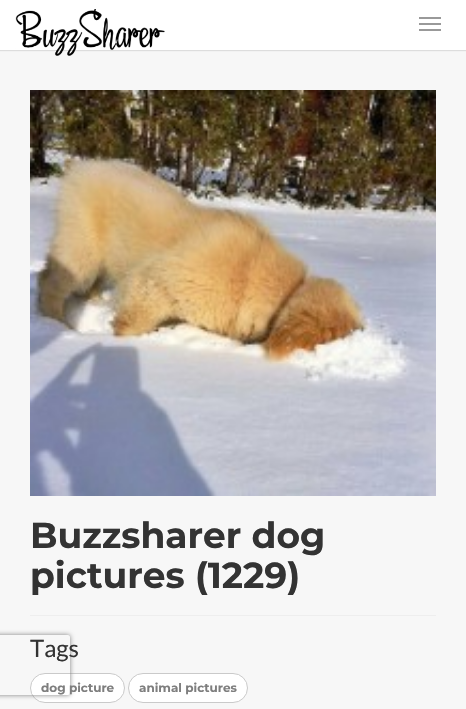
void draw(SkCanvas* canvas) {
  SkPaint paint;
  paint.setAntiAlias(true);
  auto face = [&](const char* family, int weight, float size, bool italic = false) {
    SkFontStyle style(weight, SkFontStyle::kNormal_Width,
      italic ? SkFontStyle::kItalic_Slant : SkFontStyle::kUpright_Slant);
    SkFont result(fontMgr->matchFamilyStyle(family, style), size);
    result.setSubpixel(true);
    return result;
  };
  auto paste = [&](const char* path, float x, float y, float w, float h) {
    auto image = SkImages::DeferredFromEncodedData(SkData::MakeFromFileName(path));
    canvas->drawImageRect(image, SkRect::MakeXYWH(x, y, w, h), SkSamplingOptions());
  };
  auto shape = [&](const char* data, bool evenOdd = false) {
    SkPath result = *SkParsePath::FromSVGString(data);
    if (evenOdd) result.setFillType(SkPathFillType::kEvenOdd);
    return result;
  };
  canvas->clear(0xfff7f7f7);
  paint.setColor(0xffdddddd);
  paint.setMaskFilter(SkMaskFilter::MakeBlur(kNormal_SkBlurStyle, 0.5f));
  canvas->drawRect(SkRect::MakeXYWH(0, 1, 466, 50), paint);
  paint.setMaskFilter(nullptr);
  paint.setColor(0xffffffff);
  canvas->drawRect(SkRect::MakeXYWH(0, 0, 466, 50), paint);
  paste("img/1.png", 15, 9, 150, 47);
  {
    const struct { float x, y, w, h; SkColor color; } items[] = {
      {419, 17, 22, 2, 0xff999999},
      {419, 23, 22, 2, 0xff999999},
      {419, 29, 22, 2, 0xff999999},
    };
    for (auto [x, y, w, h, color] : items) {
      paint.setColor(color);
      canvas->drawRect(SkRect::MakeXYWH(x, y, w, h), paint);
    }
  }
  paste("img/2.png", 30, 90, 406, 406);
  paint.setColor(0xffeeeeee);
  canvas->drawRect(SkRect::MakeXYWH(30, 615, 406, 1), paint);
  paint.setColor(0xffffffff);
  canvas->drawRoundRect(SkRect::MakeXYWH(30.5f, 673.5f, 94, 29), 14.5f, 14.5f, paint);
  paint.setStroke(true);
  paint.setStrokeWidth(1);
  paint.setColor(0xffcacaca);
  canvas->drawRoundRect(SkRect::MakeXYWH(30.5f, 673.5f, 94, 29), 14.5f, 14.5f, paint);
  paint.setStroke(false);
  paint.setColor(0xffffffff);
  canvas->drawRoundRect(SkRect::MakeXYWH(128.5f, 673.5f, 119, 29), 14.5f, 14.5f, paint);
  paint.setStroke(true);
  paint.setColor(0xffcacaca);
  canvas->drawRoundRect(SkRect::MakeXYWH(128.5f, 673.5f, 119, 29), 14.5f, 14.5f, paint);
  canvas->save();
  canvas->clipPath(shape("M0 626H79V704H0ZM-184 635H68C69 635 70 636 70 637V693C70 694 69 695 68 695H-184C-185 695-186 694-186 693V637C-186 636-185 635-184 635Z", true), true);
  paint.setStroke(false);
  paint.setColor(0xff808080);
  paint.setMaskFilter(SkMaskFilter::MakeBlur(kNormal_SkBlurStyle, 2.5f));
  canvas->drawRoundRect(SkRect::MakeXYWH(-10, 635, 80, 60), 2, 2, paint);
  paint.setMaskFilter(nullptr);
  canvas->restore();
  auto f0 = face("Montserrat", 100, 36);
  paint.setColor(0xff333333);
  canvas->drawString("Buzzsharer dog", 30, 548, f0, paint);
  canvas->drawString("pictures (1229)", 30, 588, f0, paint);
  auto f1 = face("Lato", 400, 24);
  canvas->drawString("Tags", 30, 657, f1, paint);
  auto f2 = face("Montserrat", 100, 12);
  paint.setColor(0xff7e7e7e);
  canvas->drawString("dog picture", 41, 692, f2, paint);
  canvas->drawString("animal pictures", 139, 692, f2, paint);
}
